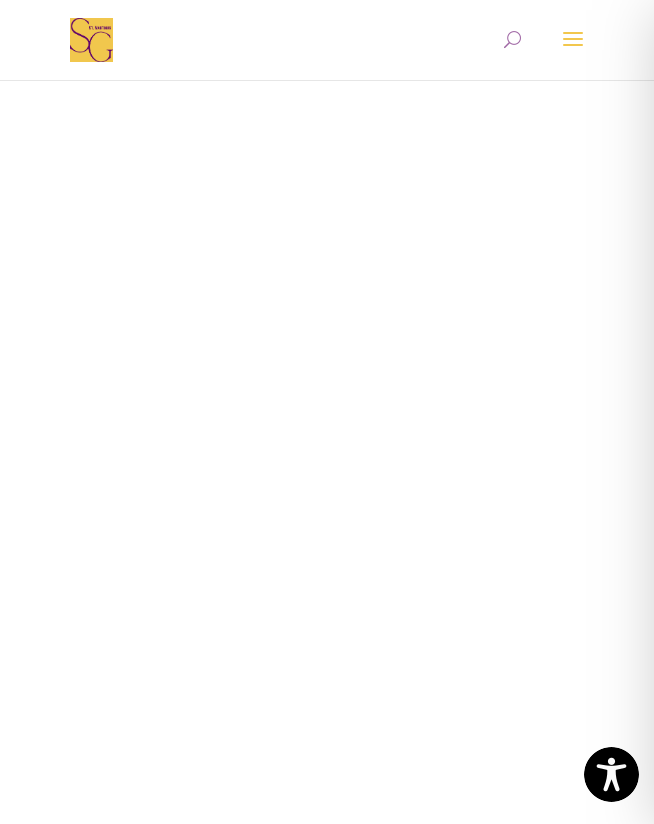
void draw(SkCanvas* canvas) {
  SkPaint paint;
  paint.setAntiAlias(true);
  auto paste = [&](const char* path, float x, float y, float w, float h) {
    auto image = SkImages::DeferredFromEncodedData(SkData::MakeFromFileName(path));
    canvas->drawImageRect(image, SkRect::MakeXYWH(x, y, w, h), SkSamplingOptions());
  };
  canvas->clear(0xffffffff);
  paint.setColor(0xffe6e6e6);
  canvas->drawRect(SkRect::MakeXYWH(0, 80, 654, 1), paint);
  paste("img/3.png", 563, 32, 20, 14);
  paste("img/4.png", 584, 747, 55, 55);
  paint.setColor(0x33000000);
  paint.setMaskFilter(SkMaskFilter::MakeBlur(kNormal_SkBlurStyle, 30));
  canvas->drawRect(SkRect::MakeXYWH(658, 10, 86, 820), paint);
  paint.setMaskFilter(nullptr);
  paste("img/1.png", 70, 18, 43, 44);
  paste("img/2.png", 504, 31, 17, 18);
}
